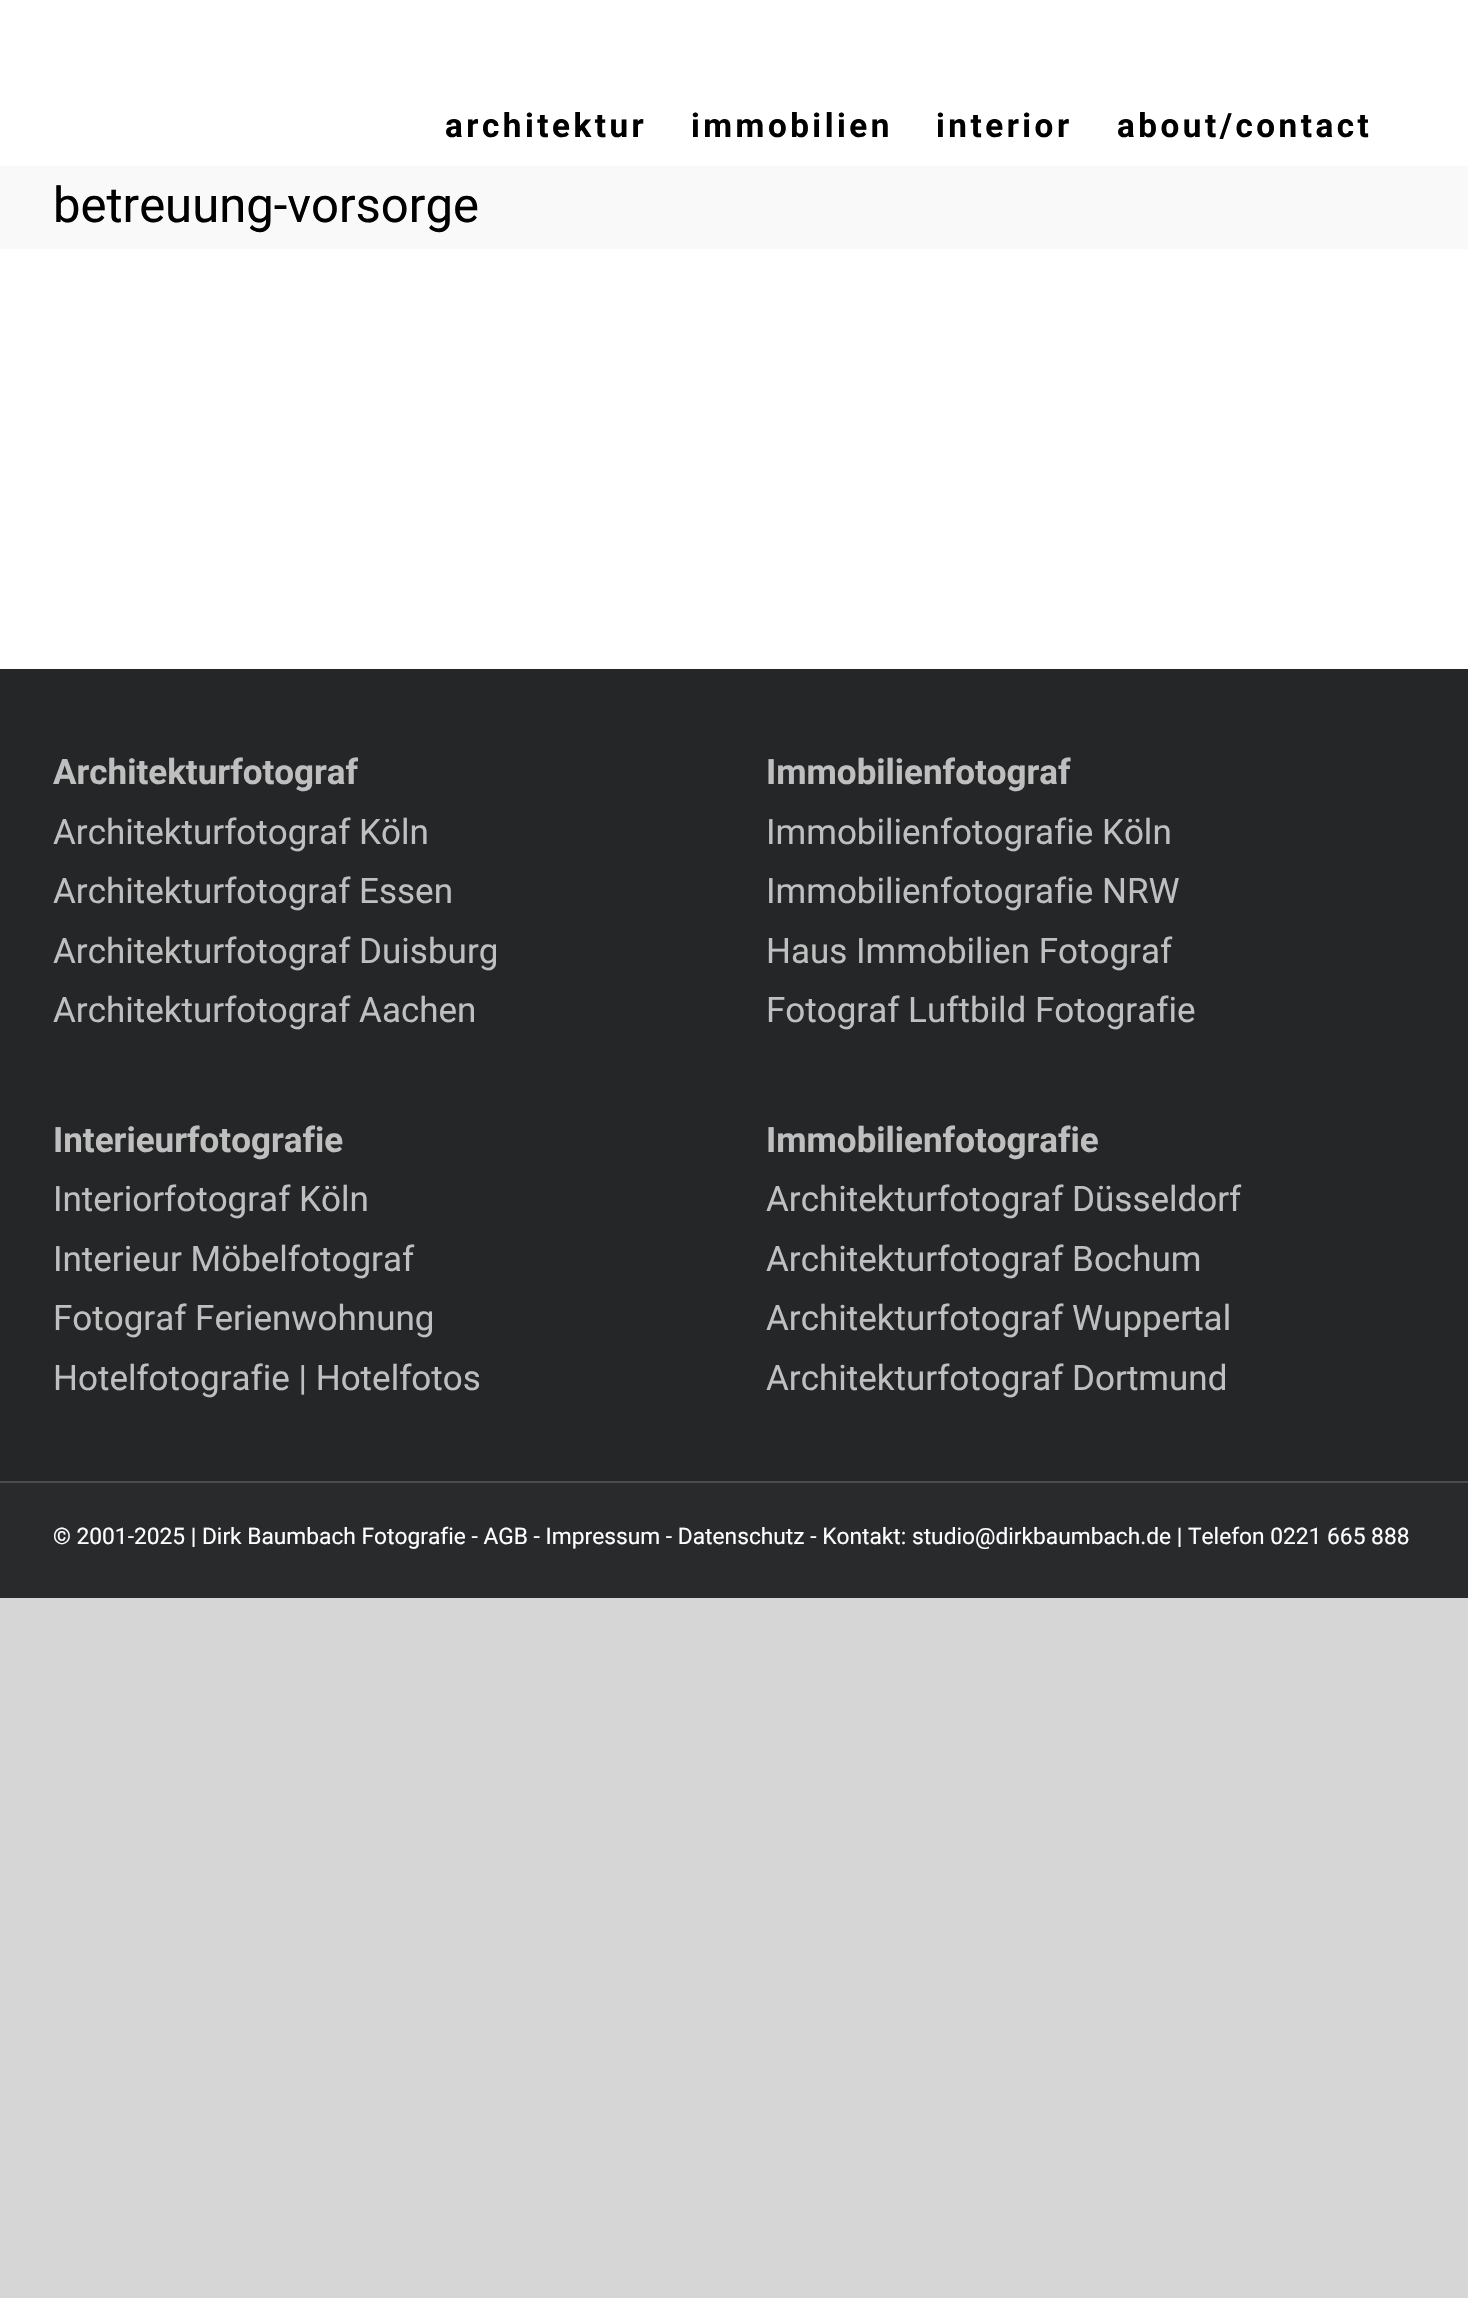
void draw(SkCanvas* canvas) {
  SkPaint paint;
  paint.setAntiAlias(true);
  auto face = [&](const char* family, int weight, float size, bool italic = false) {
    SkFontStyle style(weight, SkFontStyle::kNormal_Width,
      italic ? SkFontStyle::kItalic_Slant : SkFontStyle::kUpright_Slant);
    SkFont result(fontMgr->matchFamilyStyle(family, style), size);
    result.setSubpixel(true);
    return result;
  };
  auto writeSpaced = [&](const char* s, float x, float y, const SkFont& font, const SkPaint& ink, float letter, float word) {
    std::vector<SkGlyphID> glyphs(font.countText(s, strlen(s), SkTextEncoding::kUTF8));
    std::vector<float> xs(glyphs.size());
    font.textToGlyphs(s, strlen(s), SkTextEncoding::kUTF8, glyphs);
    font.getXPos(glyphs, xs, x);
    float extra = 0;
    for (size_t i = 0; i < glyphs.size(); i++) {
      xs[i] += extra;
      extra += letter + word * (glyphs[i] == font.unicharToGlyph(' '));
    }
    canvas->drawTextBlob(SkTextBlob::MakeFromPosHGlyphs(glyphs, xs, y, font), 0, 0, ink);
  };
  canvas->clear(0xffd7d6d6);
  {
    const struct { float x, y, w, h; SkColor color; } items[] = {
      {0, 0, 1468, 669, 0xffffffff},
      {0, 166, 1468, 83, 0xfff9f9f9},
      {0, 669, 1468, 812, 0xff252628},
      {0, 1483, 1468, 115, 0xff282a2b},
      {0, 1481, 1468, 2, 0xff4b4c4d},
    };
    for (auto [x, y, w, h, color] : items) {
      paint.setColor(color);
      canvas->drawRect(SkRect::MakeXYWH(x, y, w, h), paint);
    }
  }
  auto f0 = face("Roboto", 700, 33.25f);
  paint.setColor(0xff000000);
  {
    const struct { const char* s; float x, y; } items[] = {
      {"architektur", 445, 137},
      {"immobilien", 691, 137},
      {"interior", 936, 137},
      {"about/contact", 1117, 137},
    };
    for (auto [s, x, y] : items) {
      writeSpaced(s, x, y, f0, paint, 3.5f, 0);
    }
  }
  auto f1 = face("Roboto", 400, 49);
  canvas->drawString("betreuung-vorsorge", 53, 222, f1, paint);
  auto f2 = face("Roboto", 700, 35);
  paint.setColor(0xffbfbfbf);
  canvas->drawString("Architekturfotograf", 53, 784, f2, paint);
  auto f3 = face("Roboto", 400, 35);
  {
    const struct { const char* s; float x, y; } items[] = {
      {"Architekturfotograf Köln", 53, 844},
      {"Architekturfotograf Essen", 53, 903},
      {"Architekturfotograf Duisburg", 53, 963},
      {"Architekturfotograf Aachen", 53, 1022},
    };
    for (auto [s, x, y] : items) {
      canvas->drawString(s, x, y, f3, paint);
    }
  }
  canvas->drawString("Immobilienfotograf", 766, 784, f2, paint);
  {
    const struct { const char* s; float x, y; } items[] = {
      {"Immobilienfotografie Köln", 766, 844},
      {"Immobilienfotografie NRW", 766, 903},
      {"Haus Immobilien Fotograf", 766, 963},
      {"Fotograf Luftbild Fotografie", 766, 1022},
    };
    for (auto [s, x, y] : items) {
      canvas->drawString(s, x, y, f3, paint);
    }
  }
  canvas->drawString("Interieurfotografie", 53, 1152, f2, paint);
  {
    const struct { const char* s; float x, y; } items[] = {
      {"Interiorfotograf Köln", 53, 1211},
      {"Interieur Möbelfotograf", 53, 1271},
      {"Fotograf Ferienwohnung", 53, 1330},
      {"Hotelfotografie | Hotelfotos", 53, 1390},
    };
    for (auto [s, x, y] : items) {
      canvas->drawString(s, x, y, f3, paint);
    }
  }
  canvas->drawString("Immobilienfotografie", 766, 1152, f2, paint);
  {
    const struct { const char* s; float x, y; } items[] = {
      {"Architekturfotograf Düsseldorf", 766, 1211},
      {"Architekturfotograf Bochum", 766, 1271},
      {"Architekturfotograf Wuppertal", 766, 1330},
      {"Architekturfotograf Dortmund", 766, 1390},
    };
    for (auto [s, x, y] : items) {
      canvas->drawString(s, x, y, f3, paint);
    }
  }
  auto f4 = face("Roboto", 400, 22.75f);
  paint.setColor(0xffffffff);
  canvas->drawString("© 2001-2025 | Dirk Baumbach Fotografie - AGB - Impressum - Datenschutz - Kontakt: studio@dirkbaumbach.de | Telefon 0221 665 888", 53, 1544, f4, paint);
}
